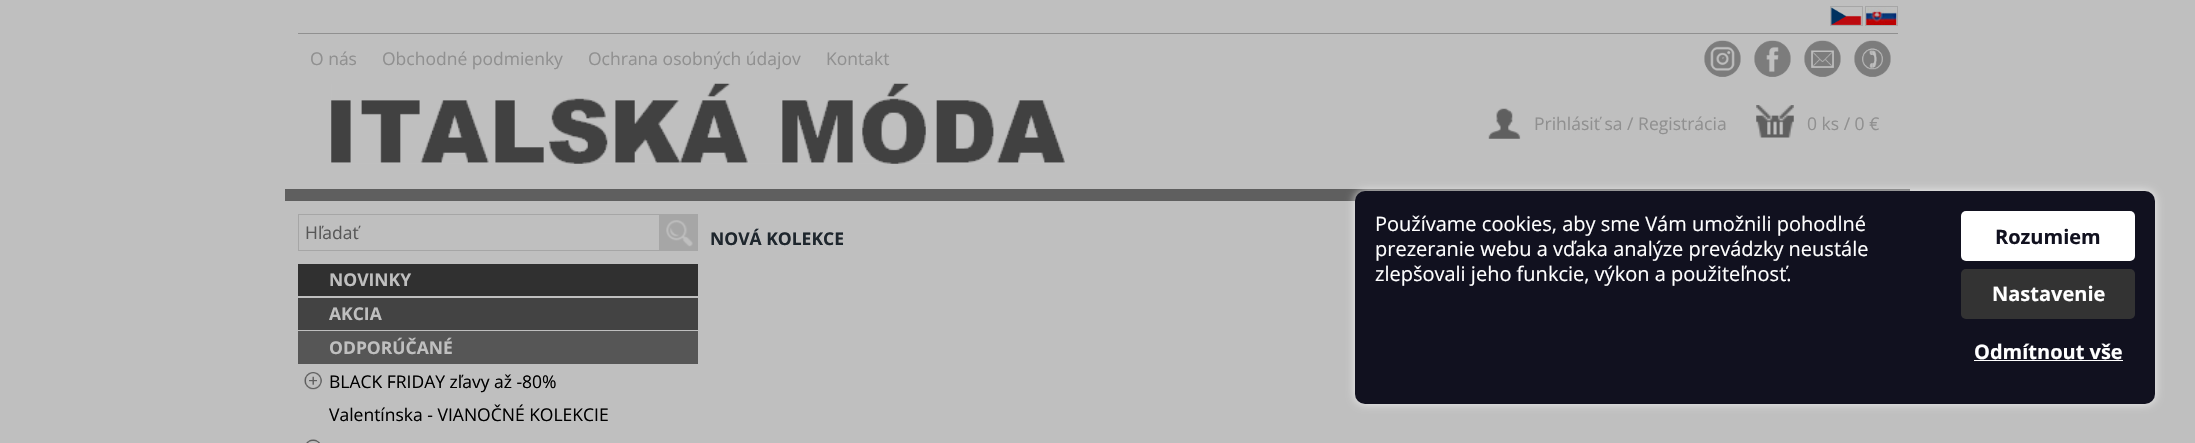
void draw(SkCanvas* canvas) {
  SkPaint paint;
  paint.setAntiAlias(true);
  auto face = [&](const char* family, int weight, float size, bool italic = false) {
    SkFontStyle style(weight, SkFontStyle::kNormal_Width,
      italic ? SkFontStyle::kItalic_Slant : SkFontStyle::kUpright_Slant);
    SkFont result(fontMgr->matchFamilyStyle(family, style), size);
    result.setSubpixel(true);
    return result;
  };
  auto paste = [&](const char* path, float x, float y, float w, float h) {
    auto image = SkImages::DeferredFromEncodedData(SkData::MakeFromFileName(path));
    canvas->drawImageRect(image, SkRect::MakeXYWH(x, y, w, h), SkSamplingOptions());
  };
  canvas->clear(0xffbfbfbf);
  paste("img/1.png", 1831, 7, 31, 18);
  paint.setStroke(true);
  paint.setStrokeWidth(1);
  paint.setColor(0xffa6a6a6);
  canvas->drawRect(SkRect::MakeXYWH(1830.5f, 6.5f, 32, 19), paint);
  paste("img/2.png", 1866, 7, 31, 18);
  canvas->drawRect(SkRect::MakeXYWH(1865.5f, 6.5f, 32, 19), paint);
  paint.setStroke(false);
  paint.setColor(0xff909090);
  canvas->drawRect(SkRect::MakeXYWH(298, 33, 1600, 1), paint);
  paste("img/3.png", 1704, 40, 37, 37);
  paste("img/4.png", 1754, 40, 37, 37);
  paste("img/5.png", 1804, 40, 37, 37);
  paste("img/6.png", 1854, 40, 37, 37);
  paste("img/7.png", 331, 83, 734, 81);
  paste("img/8.png", 1488, 108, 33, 31);
  paste("img/9.png", 1756, 105, 38, 33);
  paint.setColor(0xff5f5f5f);
  canvas->drawRect(SkRect::MakeXYWH(285, 189, 1625, 12), paint);
  paint.setStroke(true);
  paint.setColor(0xffa6a6a6);
  canvas->drawRect(SkRect::MakeXYWH(298.5f, 214.5f, 361, 36), paint);
  paint.setStroke(false);
  canvas->drawRect(SkRect::MakeXYWH(660, 214, 38, 37), paint);
  paste("img/10.png", 666, 220, 27, 27);
  {
    const struct { float x, y, w, h; SkColor color; } items[] = {
      {298, 264, 400, 32, 0xff303030},
      {298, 298, 400, 32, 0xff434343},
      {298, 331, 400, 33, 0xff565656},
    };
    for (auto [x, y, w, h, color] : items) {
      paint.setColor(color);
      canvas->drawRect(SkRect::MakeXYWH(x, y, w, h), paint);
    }
  }
  paste("img/11.png", 304, 372, 18, 18);
  paste("img/12.png", 306, 439, 14, 4);
  paint.setColor(0xbfffffff);
  paint.setMaskFilter(SkMaskFilter::MakeBlur(kNormal_SkBlurStyle, 5));
  canvas->drawRoundRect(SkRect::MakeXYWH(1355, 191, 800, 213), 10, 10, paint);
  paint.setMaskFilter(nullptr);
  paint.setColor(0xff11111f);
  canvas->drawRoundRect(SkRect::MakeXYWH(1355, 191, 800, 213), 10, 10, paint);
  paint.setColor(0xffffffff);
  canvas->drawRoundRect(SkRect::MakeXYWH(1961, 211, 174, 50), 5, 5, paint);
  paint.setColor(0xff333333);
  canvas->drawRoundRect(SkRect::MakeXYWH(1961, 269, 174, 50), 5, 5, paint);
  paint.setColor(0xffffffff);
  canvas->drawRect(SkRect::MakeXYWH(1974, 360, 149, 1), paint);
  auto f0 = face("Open Sans", 400, 17.5f);
  paint.setColor(0xff909090);
  {
    const struct { const char* s; float x, y; } items[] = {
      {"O nás", 310, 65},
      {"Obchodné podmienky", 382, 65},
      {"Ochrana osobných údajov", 588, 65},
      {"Kontakt", 826, 65},
      {"Prihlásiť sa / Registrácia", 1534, 130},
      {"0 ks / 0 €", 1807, 130},
    };
    for (auto [s, x, y] : items) {
      canvas->drawString(s, x, y, f0, paint);
    }
  }
  paint.setColor(0xff585858);
  canvas->drawString("Hľadať", 305, 239, f0, paint);
  auto f1 = face("Open Sans", 700, 17.5f);
  paint.setColor(0xffbfbfbf);
  {
    const struct { const char* s; float x, y; } items[] = {
      {"NOVINKY", 329, 286},
      {"AKCIA", 329, 320},
      {"ODPORÚČANÉ", 329, 354},
    };
    for (auto [s, x, y] : items) {
      canvas->drawString(s, x, y, f1, paint);
    }
  }
  paint.setColor(0xff000000);
  canvas->drawString("BLACK FRIDAY zľavy až -80%", 329, 388, f0, paint);
  canvas->drawString("Valentínska - VIANOČNÉ KOLEKCIE", 329, 421, f0, paint);
  paint.setColor(0xff1e262d);
  canvas->drawString("NOVÁ KOLEKCE", 710, 245, f1, paint);
  auto f2 = face("Open Sans", 400, 20);
  paint.setColor(0xffffffff);
  {
    const struct { const char* s; float x, y; } items[] = {
      {"Používame cookies, aby sme Vám umožnili pohodlné", 1375, 231},
      {"prezeranie webu a vďaka analýze prevádzky neustále", 1375, 256},
      {"zlepšovali jeho funkcie, výkon a použiteľnosť.", 1375, 281},
    };
    for (auto [s, x, y] : items) {
      canvas->drawString(s, x, y, f2, paint);
    }
  }
  auto f3 = face("Open Sans", 700, 20);
  paint.setColor(0xff11111f);
  canvas->drawString("Rozumiem", 1995, 244, f3, paint);
  paint.setColor(0xffffffff);
  canvas->drawString("Nastavenie", 1992, 301, f3, paint);
  canvas->drawString("Odmítnout vše", 1974, 359, f3, paint);
}
